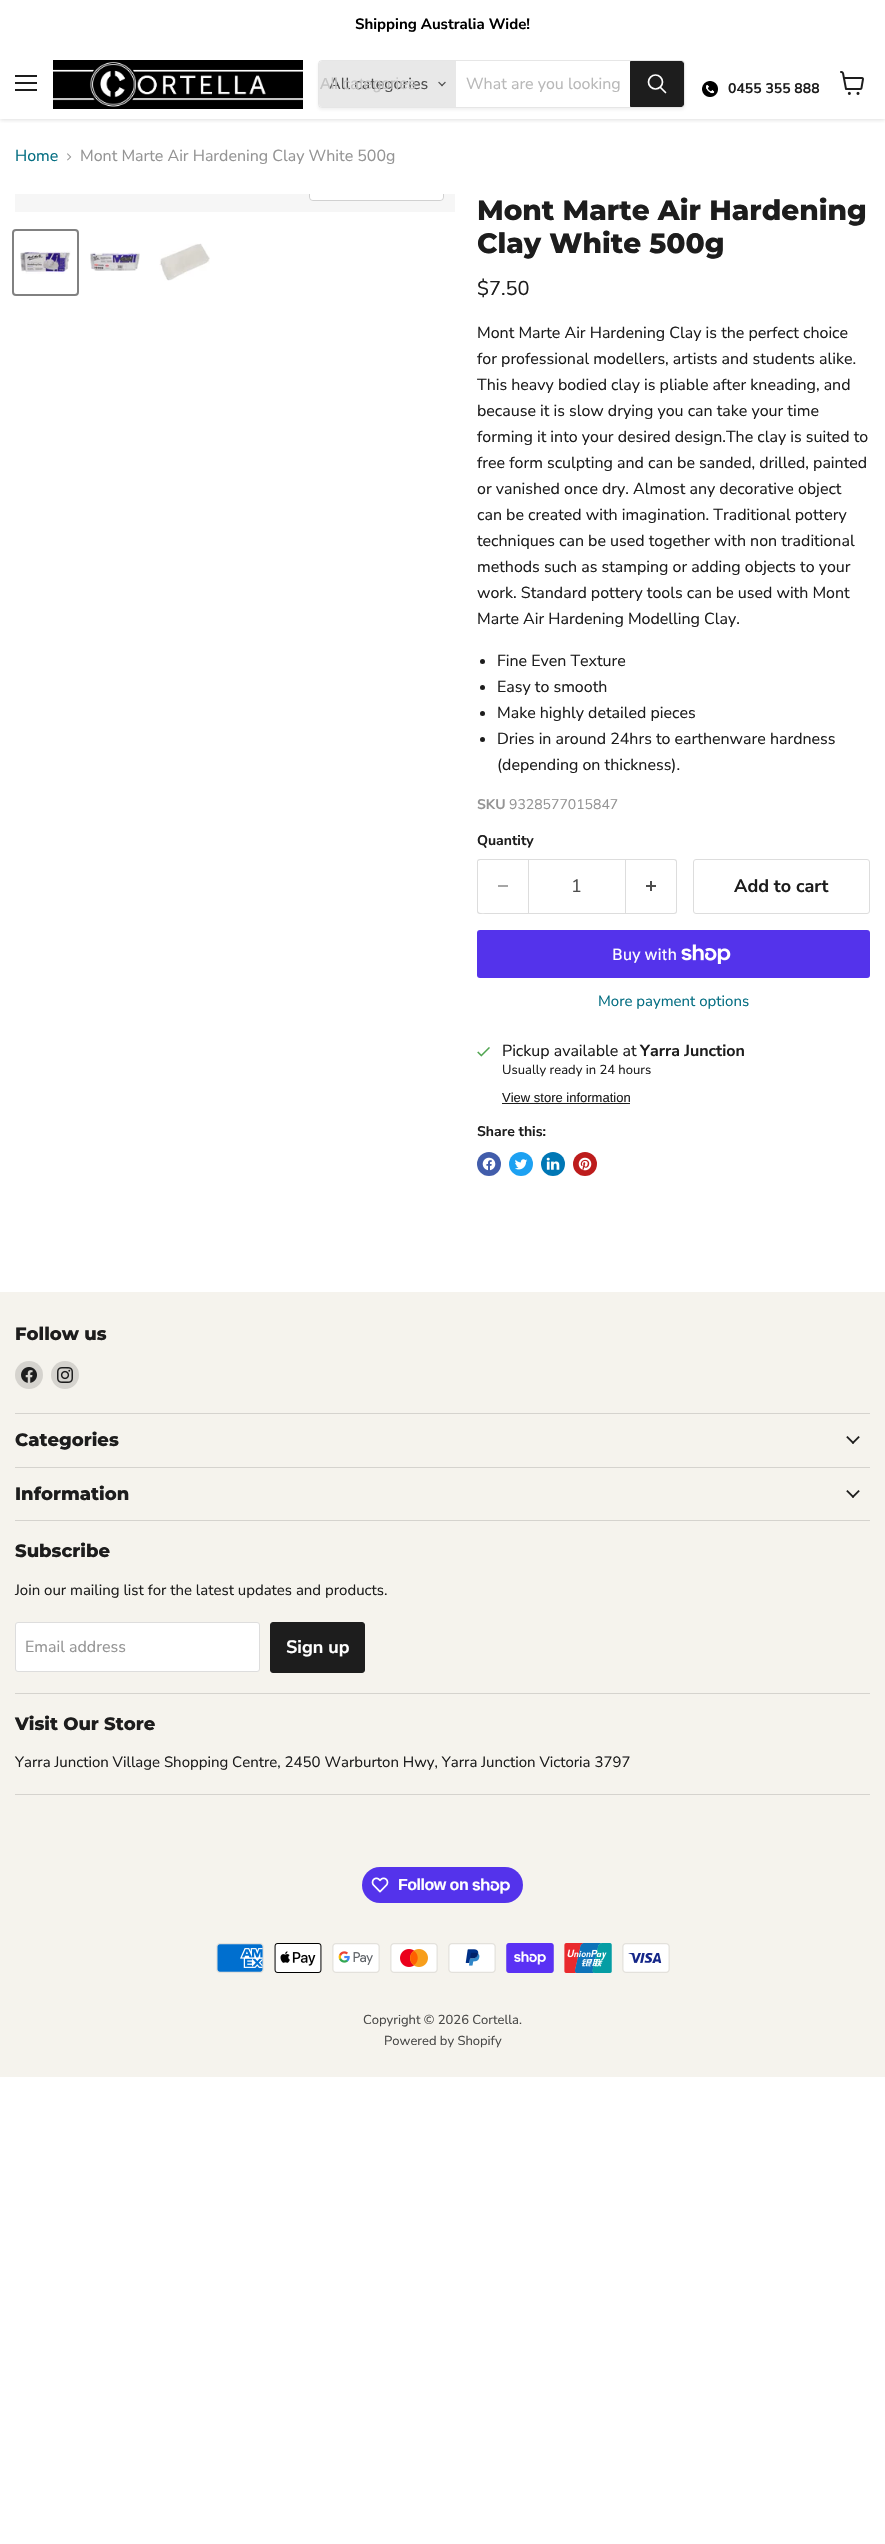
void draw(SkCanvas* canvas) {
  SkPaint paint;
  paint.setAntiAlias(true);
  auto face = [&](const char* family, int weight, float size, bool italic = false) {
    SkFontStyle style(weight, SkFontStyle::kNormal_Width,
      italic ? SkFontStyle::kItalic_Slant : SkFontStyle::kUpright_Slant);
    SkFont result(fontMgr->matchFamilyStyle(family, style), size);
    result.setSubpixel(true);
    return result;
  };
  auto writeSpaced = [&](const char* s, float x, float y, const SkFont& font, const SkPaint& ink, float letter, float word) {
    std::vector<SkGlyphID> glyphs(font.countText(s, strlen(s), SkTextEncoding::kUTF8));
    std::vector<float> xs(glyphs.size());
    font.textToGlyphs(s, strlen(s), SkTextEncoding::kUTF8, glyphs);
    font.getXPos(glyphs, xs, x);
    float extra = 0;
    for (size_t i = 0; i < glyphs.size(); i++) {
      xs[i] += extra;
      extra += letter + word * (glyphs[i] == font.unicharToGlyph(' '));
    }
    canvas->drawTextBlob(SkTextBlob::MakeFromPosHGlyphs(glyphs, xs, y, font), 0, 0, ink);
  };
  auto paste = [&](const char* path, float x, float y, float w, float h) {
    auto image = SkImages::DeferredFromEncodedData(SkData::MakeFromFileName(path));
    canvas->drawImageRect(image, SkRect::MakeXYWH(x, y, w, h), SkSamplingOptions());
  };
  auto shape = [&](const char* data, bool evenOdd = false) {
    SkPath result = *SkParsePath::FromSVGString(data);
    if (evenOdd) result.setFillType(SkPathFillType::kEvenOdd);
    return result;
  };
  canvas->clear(0xffffffff);
  canvas->save();
  canvas->clipRect(SkRect::MakeXYWH(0, 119, 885, 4));
  paint.setColor(0x40808080);
  paint.setMaskFilter(SkMaskFilter::MakeBlur(kNormal_SkBlurStyle, 2));
  canvas->drawRect(SkRect::MakeXYWH(0, 51, 885, 69), paint);
  paint.setMaskFilter(nullptr);
  canvas->restore();
  {
    const struct { float x, y, w, h; SkColor color; } items[] = {
      {0, 48, 885, 2, 0xffffffff},
      {15, 75, 22, 2, 0xff1d1d1d},
      {15, 82, 22, 2, 0xff1d1d1d},
      {15, 89, 22, 2, 0xff1d1d1d},
    };
    for (auto [x, y, w, h, color] : items) {
      paint.setColor(color);
      canvas->drawRect(SkRect::MakeXYWH(x, y, w, h), paint);
    }
  }
  paste("img/1.png", 53, 60, 250, 49);
  canvas->save();
  canvas->clipPath(shape("M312 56H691V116H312ZM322 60H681C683 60 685 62 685 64V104C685 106 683 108 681 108H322C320 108 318 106 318 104V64C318 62 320 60 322 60Z", true), true);
  paint.setColor(0x1c808080);
  paint.setMaskFilter(SkMaskFilter::MakeBlur(kNormal_SkBlurStyle, 1.5f));
  canvas->drawRoundRect(SkRect::MakeXYWH(318, 62, 367, 48), 4, 4, paint);
  paint.setMaskFilter(nullptr);
  canvas->restore();
  paint.setStroke(true);
  paint.setStrokeWidth(1);
  paint.setColor(0x33808080);
  canvas->drawRoundRect(SkRect::MakeXYWH(318.5f, 60.5f, 366, 47), 3.5f, 3.5f, paint);
  paint.setStroke(false);
  paint.setColor(0xffe8e8e8);
  canvas->drawPath(shape("M322 61H456V107H322C320.5 107 319 105.5 319 104V64C319 62.5 320.5 61 322 61Z"), paint);
  paste("img/2.png", 438, 81, 8, 6);
  paint.setColor(0xff1d1d1d);
  canvas->drawPath(shape("M630.5 61.5H681C682.5 61.5 683.5 62.5 683.5 64V104C683.5 105.5 682.5 106.5 681 106.5H630.5Z"), paint);
  paint.setStroke(true);
  canvas->drawPath(shape("M630.5 61.5H681C682.5 61.5 683.5 62.5 683.5 64V104C683.5 105.5 682.5 106.5 681 106.5H630.5Z"), paint);
  paint.setStrokeWidth(1.7f);
  paint.setStrokeCap(SkPaint::kRound_Cap);
  paint.setColor(0xffffffff);
  canvas->drawPath(shape("M665.5 92.5L660.5 87.5"), paint);
  paint.setStrokeCap(SkPaint::kButt_Cap);
  canvas->drawCircle(655.5f, 82, 7, paint);
  paste("img/3.png", 702, 81, 16, 16);
  paste("img/4.png", 840, 71, 24, 24);
  paste("img/5.png", 67, 153, 5, 8);
  paint.setStroke(false);
  paint.setColor(0xfff6f6f6);
  canvas->drawRect(SkRect::MakeXYWH(15, 194, 440, 18), paint);
  canvas->save();
  canvas->clipRect(SkRect::MakeXYWH(15, 194, 440, 18));
  paint.setStroke(true);
  paint.setStrokeWidth(1);
  paint.setColor(0xffd1d1d1);
  canvas->drawRoundRect(SkRect::MakeXYWH(309.5f, 171.5f, 134, 29), 3.5f, 3.5f, paint);
  canvas->restore();
  paint.setStroke(false);
  paint.setColor(0xe6ffffff);
  canvas->drawPath(shape("M310 194H443V197C443 198.5 441.5 200 440 200H313C311.5 200 310 198.5 310 197Z"), paint);
  paint.setStroke(true);
  paint.setStrokeWidth(2);
  paint.setColor(0xff818181);
  canvas->drawRoundRect(SkRect::MakeXYWH(13, 230, 65, 65), 3, 3, paint);
  paste("img/6.png", 20, 251, 51, 23);
  paste("img/7.png", 90, 252, 50, 19);
  paste("img/8.png", 159, 243, 51, 38);
  paint.setStroke(false);
  paint.setColor(0xff1d1d1d);
  canvas->drawCircle(482.5f, 661.5f, 2.5f, paint);
  canvas->drawCircle(482.5f, 687.5f, 2.5f, paint);
  canvas->drawCircle(482.5f, 713.5f, 2.5f, paint);
  canvas->drawCircle(482.5f, 739.5f, 2.5f, paint);
  paint.setColor(0xffdddddd);
  canvas->drawPath(shape("M480 859H528V914H480C478 914 477 913 477 911V862C477 860 478 859 480 859ZM480 860H528V913H488C484 913 478 914 478 911V861Z", true), paint);
  paint.setColor(0xffa6a6a6);
  canvas->drawRect(SkRect::MakeXYWH(498, 885, 10, 2), paint);
  paint.setStroke(true);
  paint.setStrokeWidth(1);
  paint.setColor(0xffdddddd);
  canvas->drawRect(SkRect::MakeXYWH(528.5f, 859.5f, 97, 54), paint);
  paint.setStroke(false);
  canvas->drawPath(shape("M626 859H674C676 859 677 860 677 862V911C677 913 676 914 674 914H626ZM626 860H674C675 860 676 861 676 862V911C676 912 675 913 674 913H626Z", true), paint);
  paste("img/9.png", 646, 881, 10, 10);
  paint.setStroke(true);
  canvas->drawRoundRect(SkRect::MakeXYWH(693.5f, 859.5f, 176, 54), 2.5f, 2.5f, paint);
  paint.setStroke(false);
  paint.setColor(0xff5433eb);
  canvas->drawRoundRect(SkRect::MakeXYWH(477, 930, 393, 48), 3, 3, paint);
  paste("img/10.png", 681, 944, 50, 20);
  paste("img/11.png", 477, 1047, 13, 10);
  paint.setColor(0xff1d1d1d);
  canvas->drawRect(SkRect::MakeXYWH(502, 1103, 128, 1), paint);
  paint.setColor(0xff425dab);
  canvas->drawCircle(489, 1164, 12, paint);
  paste("img/12.png", 482, 1157, 14, 14);
  paint.setColor(0xff1da1f2);
  canvas->drawCircle(521, 1164, 12, paint);
  paste("img/13.png", 515, 1159, 13, 11);
  paint.setColor(0xff0077b5);
  canvas->drawCircle(553, 1164, 12, paint);
  paste("img/14.png", 546, 1157, 14, 13);
  paint.setColor(0xffbd1c1c);
  canvas->drawCircle(585, 1164, 12, paint);
  paste("img/15.png", 578, 1157, 14, 14);
  paint.setColor(0xfff5f3ed);
  canvas->drawRect(SkRect::MakeXYWH(0, 1292, 885, 785), paint);
  paint.setColor(0xffd5d3ce);
  canvas->drawRect(SkRect::MakeXYWH(15, 1413, 855, 1), paint);
  canvas->drawCircle(29, 1375, 14, paint);
  paste("img/16.png", 21, 1367, 16, 16);
  canvas->drawCircle(65, 1375, 14, paint);
  paste("img/17.png", 57, 1367, 16, 16);
  canvas->drawRect(SkRect::MakeXYWH(15, 1467, 855, 1), paint);
  paste("img/18.png", 846, 1436, 14, 8);
  canvas->drawRect(SkRect::MakeXYWH(15, 1520, 855, 1), paint);
  paste("img/18.png", 846, 1490, 14, 8);
  canvas->drawRect(SkRect::MakeXYWH(15, 1693, 855, 1), paint);
  paint.setColor(0xffffffff);
  canvas->drawRoundRect(SkRect::MakeXYWH(15.5f, 1622.5f, 244, 49), 2.5f, 2.5f, paint);
  paint.setStroke(true);
  paint.setColor(0xffdddddd);
  canvas->drawRoundRect(SkRect::MakeXYWH(15.5f, 1622.5f, 244, 49), 2.5f, 2.5f, paint);
  paint.setStroke(false);
  paint.setColor(0xff1d1d1d);
  canvas->drawRoundRect(SkRect::MakeXYWH(270.5f, 1622.5f, 94, 50), 2.5f, 2.5f, paint);
  paint.setStroke(true);
  canvas->drawRoundRect(SkRect::MakeXYWH(270.5f, 1622.5f, 94, 50), 2.5f, 2.5f, paint);
  paint.setStroke(false);
  paint.setColor(0xffd5d3ce);
  canvas->drawRect(SkRect::MakeXYWH(15, 1794, 855, 1), paint);
  paint.setColor(0xff5433eb);
  canvas->drawRoundRect(SkRect::MakeXYWH(362, 1867, 161, 36), 18, 18, paint);
  paste("img/19.png", 371, 1877, 18, 16);
  paste("img/20.png", 472, 1878, 38, 16);
  paste("img/21.png", 216, 1943, 48, 30);
  paste("img/22.png", 274, 1943, 48, 30);
  paste("img/23.png", 332, 1943, 48, 30);
  paste("img/24.png", 390, 1943, 48, 30);
  paste("img/25.png", 448, 1943, 48, 30);
  paste("img/26.png", 506, 1943, 48, 30);
  paste("img/27.png", 564, 1943, 48, 30);
  paste("img/28.png", 622, 1943, 48, 30);
  auto f0 = face("Nunito Sans", 700, 15);
  paint.setColor(0xff000000);
  canvas->drawString("Shipping Australia Wide!", 355, 29, f0, paint);
  auto f1 = face("Nunito Sans", 400, 16);
  paint.setColor(0xff4d4d4d);
  canvas->drawString("All categories", 329, 89, f1, paint);
  auto f2 = face("Liberation Sans", 400, 16);
  paint.setColor(0xffc4c4c4);
  canvas->drawString("All categories", 320, 89, f2, paint);
  paint.setColor(0xffb8b8b8);
  canvas->drawString("What are you looking", 466, 89, f1, paint);
  auto f3 = face("Nunito Sans", 700, 14);
  paint.setColor(0xff1d1d1d);
  canvas->drawString("0455 355 888", 728, 93, f3, paint);
  paint.setColor(0xff046e82);
  canvas->drawString("Home", 15, 161, f1, paint);
  paint.setColor(0xff949494);
  canvas->drawString("Mont Marte Air Hardening Clay White 500g", 80, 161, f1, paint);
  auto f4 = face("Montserrat", 800, 28);
  paint.setColor(0xff1d1d1d);
  canvas->drawString("Mont Marte Air Hardening", 477, 220, f4, paint);
  canvas->drawString("Clay White 500g", 477, 253, f4, paint);
  auto f5 = face("Nunito Sans", 400, 20);
  canvas->drawString("$7.50", 477, 295, f5, paint);
  {
    const struct { const char* s; float x, y; } items[] = {
      {"Mont Marte Air Hardening Clay is the perfect choice", 477, 338},
      {"for professional modellers, artists and students alike.", 477, 364},
      {"This heavy bodied clay is pliable after kneading, and", 477, 390},
      {"because it is slow drying you can take your time", 477, 416},
      {"forming it into your desired design.The clay is suited to", 477, 442},
      {"free form sculpting and can be sanded, drilled, painted", 477, 468},
      {"or vanished once dry. Almost any decorative object", 477, 494},
      {"can be created with imagination. Traditional pottery", 477, 520},
      {"techniques can be used together with non traditional", 477, 546},
      {"methods such as stamping or adding objects to your", 477, 572},
      {"work. Standard pottery tools can be used with Mont", 477, 598},
      {"Marte Air Hardening Modelling Clay.", 477, 624},
      {"Fine Even Texture", 497, 666},
      {"Easy to smooth", 497, 692},
      {"Make highly detailed pieces", 497, 718},
      {"Dries in around 24hrs to earthenware hardness", 497, 744},
      {"(depending on thickness).", 497, 770},
    };
    for (auto [s, x, y] : items) {
      canvas->drawString(s, x, y, f1, paint);
    }
  }
  paint.setColor(0xff949494);
  canvas->drawString("SKU", 477, 809, f3, paint);
  auto f6 = face("Nunito Sans", 400, 14);
  canvas->drawString("9328577015847", 509, 809, f6, paint);
  paint.setColor(0xff1d1d1d);
  canvas->drawString("Quantity", 477, 845, f3, paint);
  auto f7 = face("Nunito Sans", 400, 18);
  paint.setColor(0xff4d4d4d);
  canvas->drawString("1", 571, 892, f7, paint);
  auto f8 = face("Nunito Sans", 700, 18);
  paint.setColor(0xff1d1d1d);
  canvas->drawString("Add to cart", 734, 892, f8, paint);
  auto f9 = face("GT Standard", 400, 16);
  paint.setColor(0xffffffff);
  canvas->drawString("Buy with", 612, 960, f9, paint);
  auto f10 = face("Nunito Sans", 400, 15);
  paint.setColor(0xff046e82);
  canvas->drawString("More payment options", 598, 1006, f10, paint);
  paint.setColor(0xff1d1d1d);
  canvas->drawString("Pickup available at", 502, 1056, f1, paint);
  auto f11 = face("Nunito Sans", 700, 16);
  canvas->drawString("Yarra Junction", 640, 1056, f11, paint);
  auto f12 = face("Nunito Sans", 400, 13);
  canvas->drawString("Usually ready in 24 hours", 502, 1074, f12, paint);
  auto f13 = face("Liberation Sans", 400, 13);
  canvas->drawString("View store information", 502, 1102, f13, paint);
  canvas->drawString("Share this:", 477, 1136, f3, paint);
  auto f14 = face("Montserrat", 800, 18);
  {
    const struct { const char* s; float x, y; } items[] = {
      {"Follow us", 15, 1340},
      {"Categories", 15, 1446},
      {"Information", 15, 1500},
      {"Subscribe", 15, 1557},
    };
    for (auto [s, x, y] : items) {
      canvas->drawString(s, x, y, f14, paint);
    }
  }
  canvas->drawString("Join our mailing list for the latest updates and products.", 15, 1595, f10, paint);
  paint.setColor(0xff949494);
  canvas->drawString("Email address", 25, 1652, f1, paint);
  paint.setColor(0xffffffff);
  canvas->drawString("Sign up", 286, 1653, f8, paint);
  paint.setColor(0xff1d1d1d);
  canvas->drawString("Visit Our Store", 15, 1730, f14, paint);
  canvas->drawString("Yarra Junction Village Shopping Centre, 2450 Warburton Hwy, Yarra Junction Victoria 3797", 15, 1767, f10, paint);
  auto f15 = face("Liberation Sans", 700, 16);
  paint.setColor(0xffffffff);
  writeSpaced("Follow on", 398, 1890, f15, paint, -0.5f, 0);
  paint.setColor(0xff484847);
  canvas->drawString("Copyright © 2026 Cortella.", 363, 2024, f12, paint);
  canvas->drawString("Powered by Shopify", 384, 2045, f12, paint);
}
